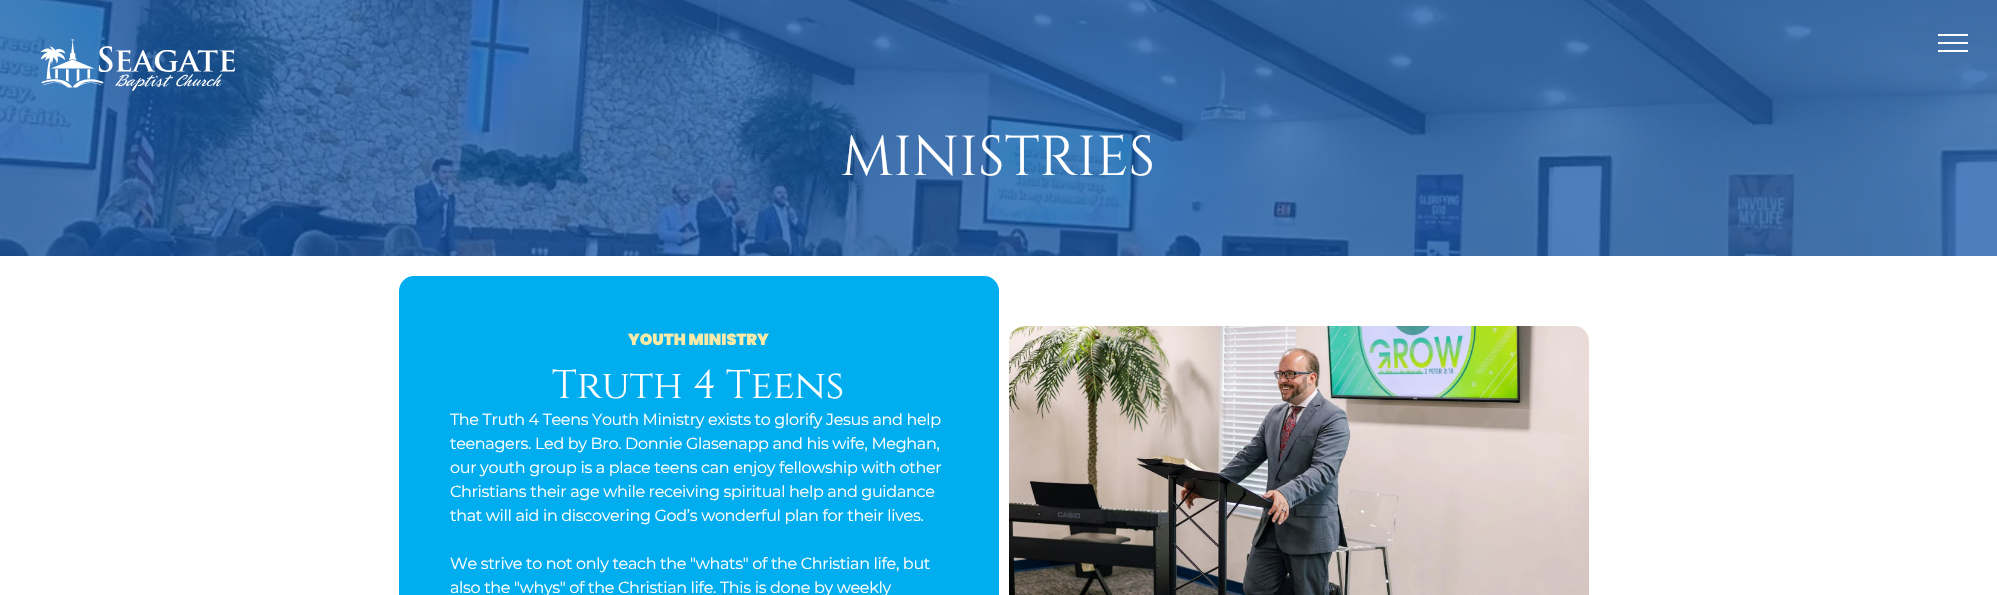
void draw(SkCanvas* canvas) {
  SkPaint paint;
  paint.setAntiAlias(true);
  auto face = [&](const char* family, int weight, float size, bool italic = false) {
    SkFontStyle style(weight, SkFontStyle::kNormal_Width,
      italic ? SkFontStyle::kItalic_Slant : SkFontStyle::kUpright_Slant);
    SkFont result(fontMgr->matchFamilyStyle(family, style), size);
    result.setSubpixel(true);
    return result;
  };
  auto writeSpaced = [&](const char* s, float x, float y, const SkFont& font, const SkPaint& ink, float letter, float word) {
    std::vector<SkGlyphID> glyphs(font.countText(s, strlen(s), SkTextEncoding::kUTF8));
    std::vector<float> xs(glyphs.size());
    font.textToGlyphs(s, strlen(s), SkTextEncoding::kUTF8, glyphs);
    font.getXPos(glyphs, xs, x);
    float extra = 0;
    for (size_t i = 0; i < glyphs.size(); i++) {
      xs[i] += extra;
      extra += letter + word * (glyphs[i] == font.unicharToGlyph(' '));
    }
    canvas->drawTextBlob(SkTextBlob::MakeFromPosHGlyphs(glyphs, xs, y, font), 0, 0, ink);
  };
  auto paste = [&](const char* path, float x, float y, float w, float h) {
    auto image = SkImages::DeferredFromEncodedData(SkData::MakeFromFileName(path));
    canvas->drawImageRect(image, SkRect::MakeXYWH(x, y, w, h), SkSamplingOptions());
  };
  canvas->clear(0xffffffff);
  paste("img/2.png", 0, 0, 1997, 256);
  paste("img/1.png", 40, 39, 195, 52);
  {
    const struct { float x, y, w, h; SkColor color; } items[] = {
      {1938, 34, 30, 2, 0xffffffff},
      {1938, 42, 30, 2, 0xffffffff},
      {1938, 50, 30, 2, 0xffffffff},
    };
    for (auto [x, y, w, h, color] : items) {
      paint.setColor(color);
      canvas->drawRect(SkRect::MakeXYWH(x, y, w, h), paint);
    }
  }
  paint.setColor(0xff00adee);
  canvas->drawRoundRect(SkRect::MakeXYWH(399, 276, 600, 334), 15, 15, paint);
  paste("img/3.png", 1009, 326, 580, 269);
  auto f0 = face("Liberation Sans", 700, 19);
  paint.setColor(0xff387ab9);
  canvas->drawString(":", 100, 47, f0, paint);
  auto f1 = face("Cinzel", 400, 56);
  paint.setColor(0xffffffff);
  canvas->drawString("MINISTRIES", 841, 175, f1, paint);
  auto f2 = face("Poppins", 900, 16);
  paint.setColor(0xfff9eaa8);
  canvas->drawString("YOUTH MINISTRY", 628, 345, f2, paint);
  auto f3 = face("Cinzel", 400, 40);
  paint.setColor(0xffffffff);
  canvas->drawString("Truth 4 Teens", 552, 398, f3, paint);
  auto f4 = face("Montserrat", 400, 16);
  {
    const struct { const char* s; float x, y; } items[] = {
      {"The Truth 4 Teens Youth Ministry exists to glorify Jesus and help", 450, 425},
      {"teenagers. Led by Bro. Donnie Glasenapp and his wife, Meghan,", 450, 449},
      {"our youth group is a place teens can enjoy fellowship with other", 450, 473},
      {"Christians their age while receiving spiritual help and guidance", 450, 497},
      {"that will aid in discovering God’s wonderful plan for their lives.", 450, 521},
      {"We strive to not only teach the \"whats\" of the Christian life, but", 450, 569},
      {"also the \"whys\" of the Christian life. This is done by weekly", 450, 593},
    };
    for (auto [s, x, y] : items) {
      writeSpaced(s, x, y, f4, paint, -0.32f, 0);
    }
  }
}
